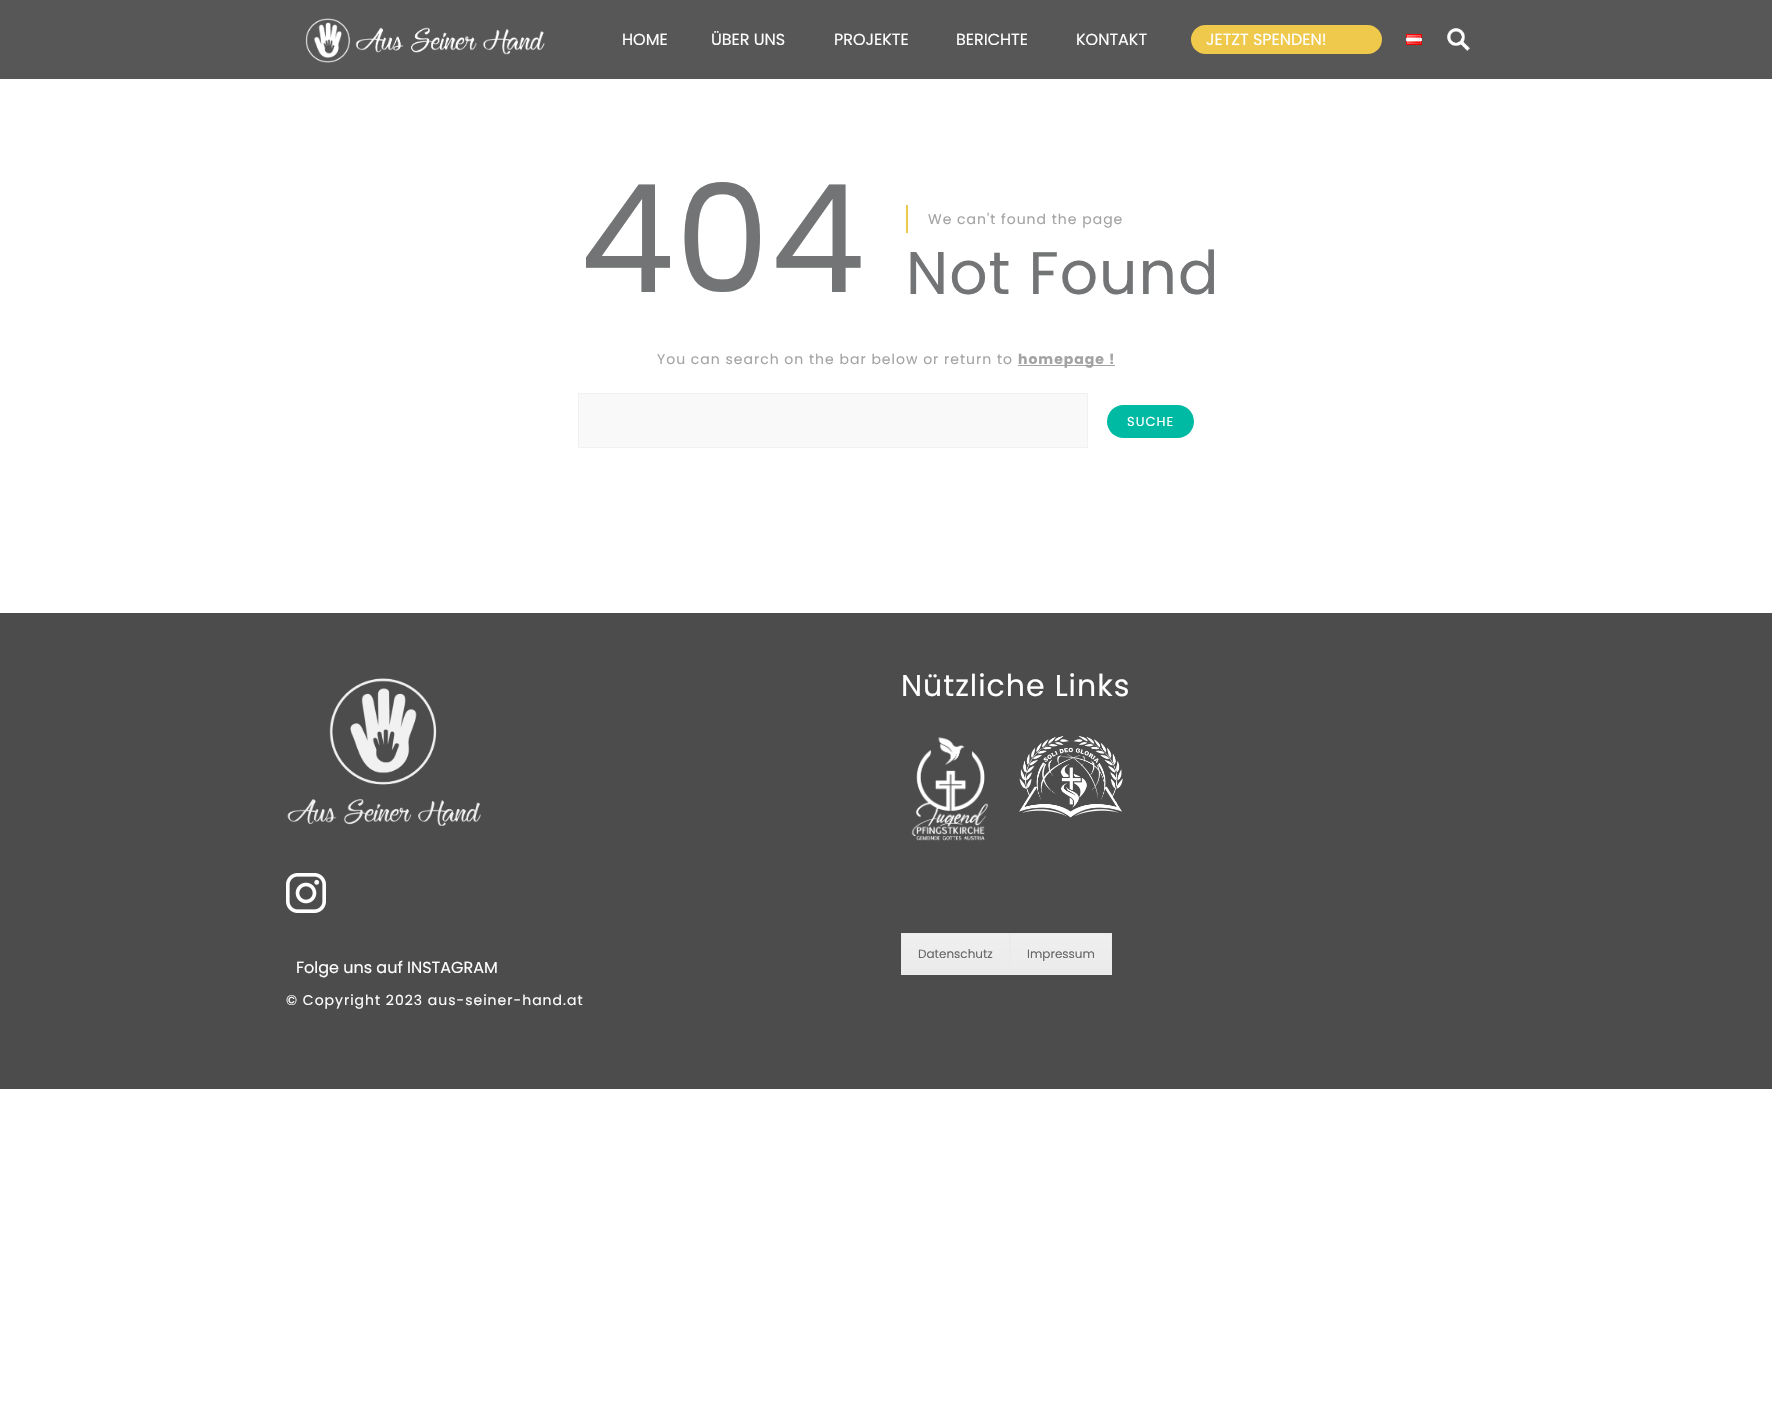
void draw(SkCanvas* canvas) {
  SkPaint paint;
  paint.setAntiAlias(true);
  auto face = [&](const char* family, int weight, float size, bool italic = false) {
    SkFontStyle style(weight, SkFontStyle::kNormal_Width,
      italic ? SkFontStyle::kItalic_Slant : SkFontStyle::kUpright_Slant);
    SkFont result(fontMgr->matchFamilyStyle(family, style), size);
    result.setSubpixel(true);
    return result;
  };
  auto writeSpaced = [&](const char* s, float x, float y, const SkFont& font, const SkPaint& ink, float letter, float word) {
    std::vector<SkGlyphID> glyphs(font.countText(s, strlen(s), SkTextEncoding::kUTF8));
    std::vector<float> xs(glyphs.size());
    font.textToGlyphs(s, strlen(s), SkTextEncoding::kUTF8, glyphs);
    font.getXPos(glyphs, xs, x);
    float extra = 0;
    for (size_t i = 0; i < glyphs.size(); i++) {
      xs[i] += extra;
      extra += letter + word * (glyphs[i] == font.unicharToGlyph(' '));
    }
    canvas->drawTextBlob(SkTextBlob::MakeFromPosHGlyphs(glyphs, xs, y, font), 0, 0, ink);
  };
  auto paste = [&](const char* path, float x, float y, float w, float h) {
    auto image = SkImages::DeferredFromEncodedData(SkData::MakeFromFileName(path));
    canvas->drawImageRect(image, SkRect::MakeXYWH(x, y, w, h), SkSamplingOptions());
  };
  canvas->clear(0xffffffff);
  paint.setColor(0xff575757);
  canvas->drawRect(SkRect::MakeXYWH(0, 0, 1772, 79), paint);
  paste("img/1.png", 305, 18, 240, 45);
  paint.setColor(0xffefc94c);
  canvas->drawRoundRect(SkRect::MakeXYWH(1191, 25, 191, 29), 14.5f, 14.5f, paint);
  paste("img/2.png", 1406, 34, 16, 11);
  paste("img/3.png", 1447, 28, 23, 23);
  canvas->drawRect(SkRect::MakeXYWH(906, 205, 2, 28), paint);
  paint.setColor(0xffa3a3a3);
  canvas->drawRect(SkRect::MakeXYWH(1018, 365, 97, 1), paint);
  paint.setColor(0xfff9f9f9);
  canvas->drawRect(SkRect::MakeXYWH(578.5f, 393.5f, 509, 54), paint);
  paint.setStroke(true);
  paint.setStrokeWidth(1);
  paint.setColor(0xfff1f1f1);
  canvas->drawRect(SkRect::MakeXYWH(578.5f, 393.5f, 509, 54), paint);
  paint.setStroke(false);
  paint.setColor(0xff00baa3);
  canvas->drawRoundRect(SkRect::MakeXYWH(1107, 405, 87, 33), 16.5f, 16.5f, paint);
  paint.setColor(0xff4c4c4c);
  canvas->drawRect(SkRect::MakeXYWH(0, 613, 1772, 476), paint);
  paste("img/4.png", 911, 737, 77, 104);
  paste("img/5.png", 1019, 736, 104, 82);
  {
    const SkColor colors[] = {0xffefefef, 0xffebebeb};
    const float stops[] = {0, 1};
    const SkPoint ends[] = {{956, 934}, {956, 974}};
    paint.setShader(SkGradientShader::MakeLinear(ends, colors, stops, 2, SkTileMode::kClamp));
    paint.setAlpha(255);
  }
  canvas->drawRect(SkRect::MakeXYWH(902, 934, 107, 40), paint);
  paint.setStroke(true);
  paint.setShader(nullptr);
  paint.setColor(0xffebebeb);
  canvas->drawRect(SkRect::MakeXYWH(901.5f, 933.5f, 108, 41), paint);
  paint.setStroke(false);
  {
    const SkColor colors[] = {0xffefefef, 0xffebebeb};
    const float stops[] = {0, 1};
    const SkPoint ends[] = {{1061, 934}, {1061, 974}};
    paint.setShader(SkGradientShader::MakeLinear(ends, colors, stops, 2, SkTileMode::kClamp));
    paint.setAlpha(255);
  }
  canvas->drawRect(SkRect::MakeXYWH(1011, 934, 100, 40), paint);
  paint.setStroke(true);
  paint.setShader(nullptr);
  paint.setColor(0xffebebeb);
  canvas->drawRect(SkRect::MakeXYWH(1010.5f, 933.5f, 101, 41), paint);
  paste("img/6.png", 287, 678, 194, 148);
  paste("img/7.png", 286, 873, 40, 40);
  auto f0 = face("Poppins", 400, 16);
  paint.setStroke(false);
  paint.setColor(0xffffffff);
  {
    const struct { const char* s; float x, y; } items[] = {
      {"HOME", 622, 45},
      {"ÜBER UNS", 711, 45},
      {"PROJEKTE", 834, 45},
      {"BERICHTE", 956, 45},
      {"KONTAKT", 1076, 45},
      {"JETZT SPENDEN!", 1206, 45},
    };
    for (auto [s, x, y] : items) {
      canvas->drawString(s, x, y, f0, paint);
    }
  }
  auto f1 = face("Poppins", 400, 150);
  paint.setColor(0xff727475);
  writeSpaced("404", 580, 292, f1, paint, 1, 0);
  auto f2 = face("Poppins", 400, 14);
  paint.setColor(0xffa3a3a3);
  writeSpaced("We can't found the page", 928, 224, f2, paint, 1, 0);
  auto f3 = face("Poppins", 400, 60);
  paint.setColor(0xff727475);
  writeSpaced("Not Found", 906, 294, f3, paint, 1, 0);
  paint.setColor(0xffa3a3a3);
  writeSpaced("You can search on the bar below or return to", 657, 364, f2, paint, 1, 0);
  auto f4 = face("Poppins", 700, 14);
  writeSpaced("homepage !", 1018, 364, f4, paint, 1, 0);
  auto f5 = face("Poppins", 400, 13);
  paint.setColor(0xffffffff);
  writeSpaced("SUCHE", 1127, 426, f5, paint, 1, 0);
  auto f6 = face("Poppins", 400, 30);
  writeSpaced("Nützliche Links", 901, 696, f6, paint, 1, 0);
  auto f7 = face("Poppins", 400, 12);
  paint.setColor(0xff666666);
  canvas->drawString("Datenschutz", 918, 958, f7, paint);
  canvas->drawString("Impressum", 1027, 958, f7, paint);
  paint.setColor(0xffffffff);
  canvas->drawString("Folge uns auf INSTAGRAM", 296, 973, f0, paint);
  writeSpaced("© Copyright 2023 aus-seiner-hand.at", 286, 1005, f2, paint, 1, 0);
}
